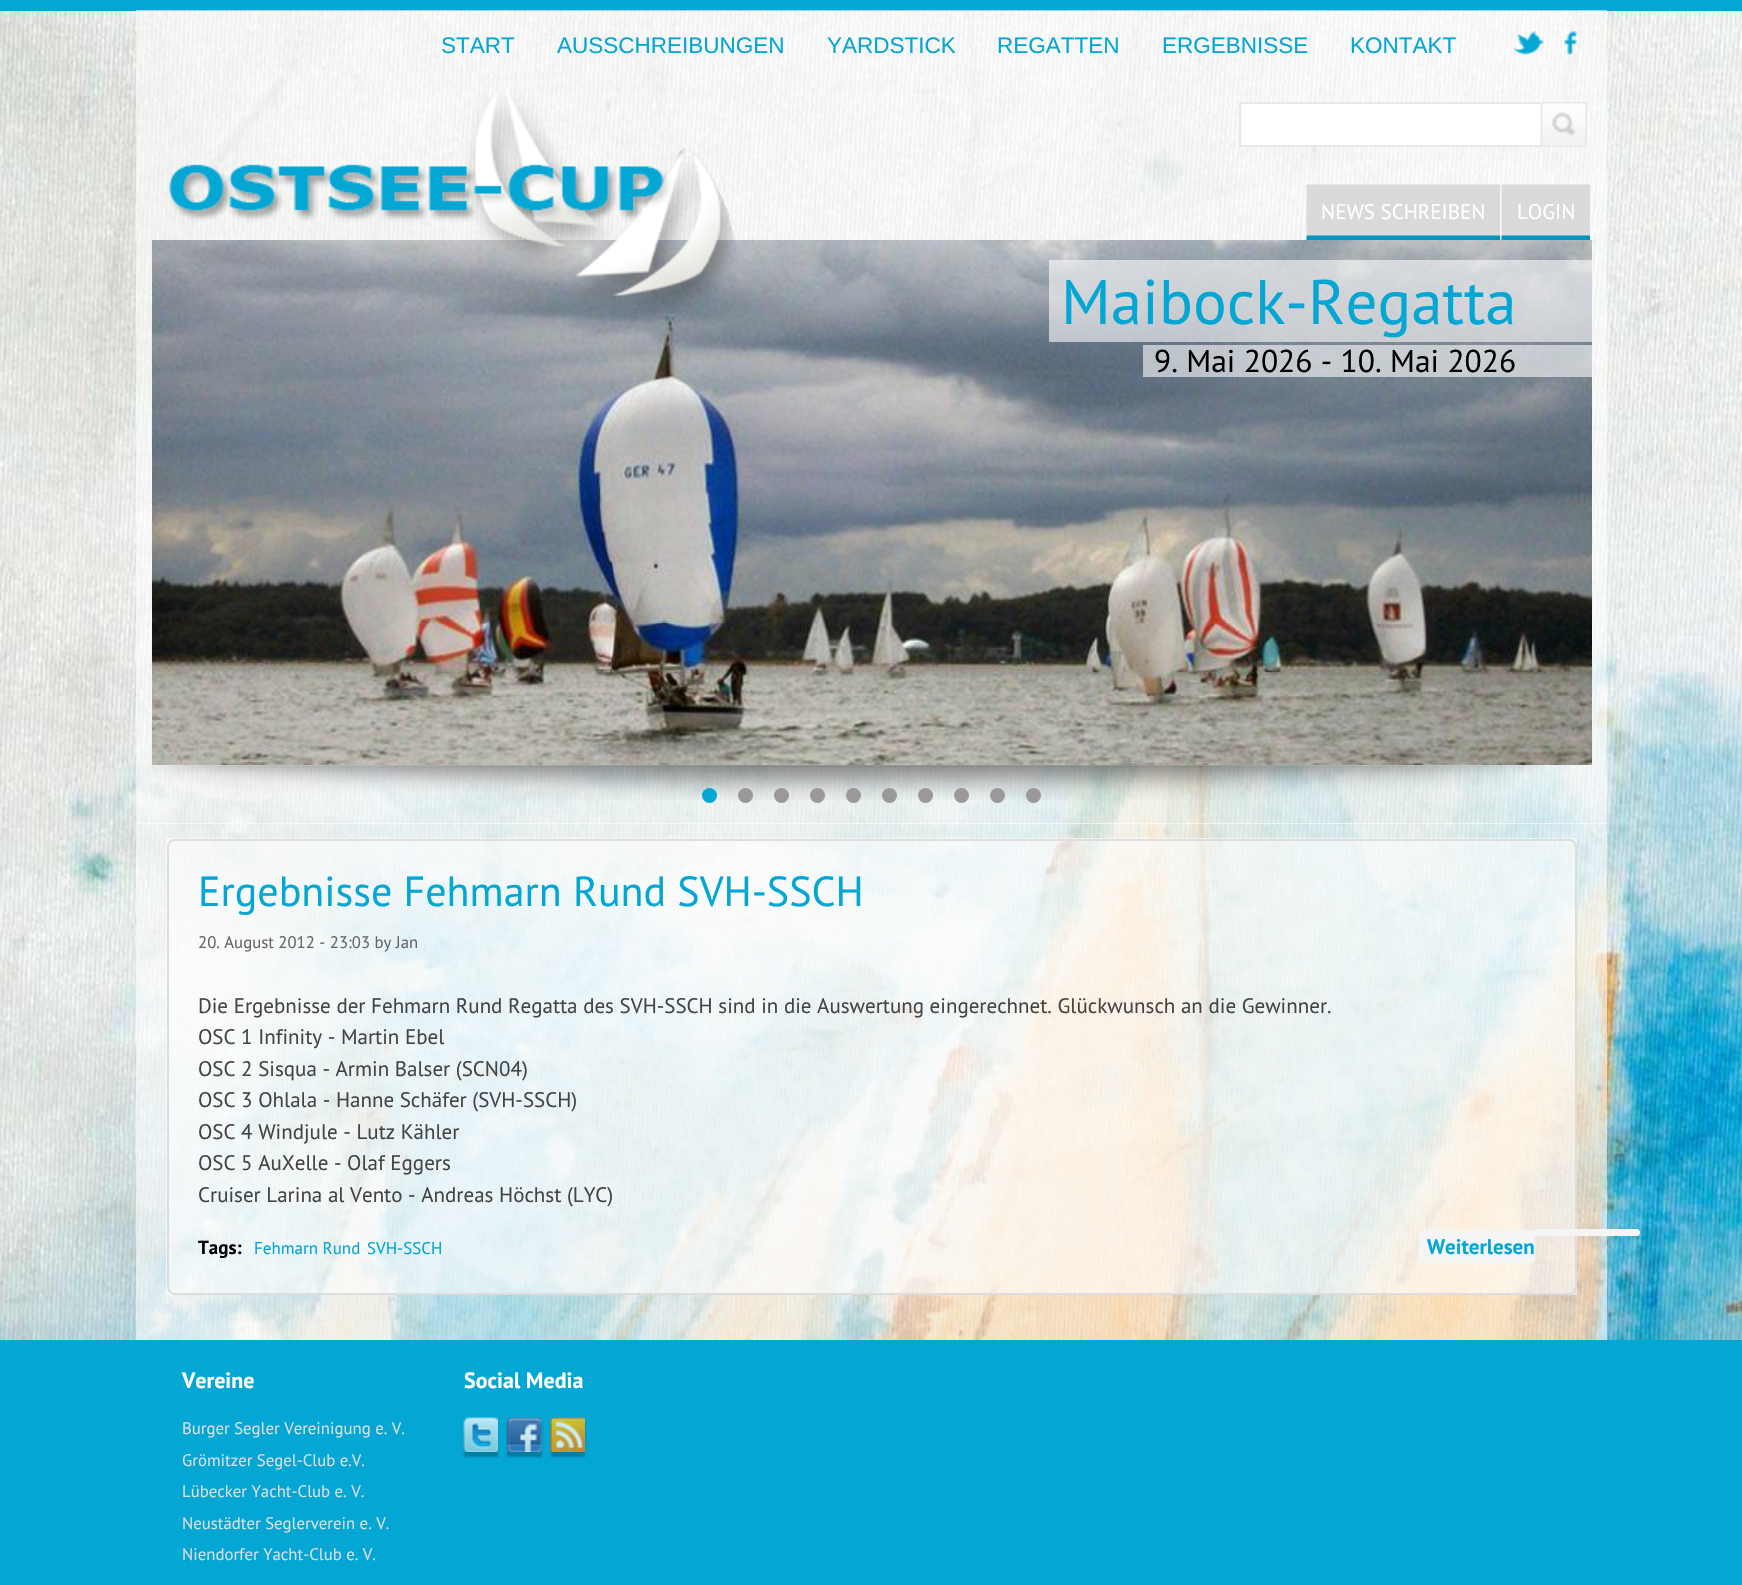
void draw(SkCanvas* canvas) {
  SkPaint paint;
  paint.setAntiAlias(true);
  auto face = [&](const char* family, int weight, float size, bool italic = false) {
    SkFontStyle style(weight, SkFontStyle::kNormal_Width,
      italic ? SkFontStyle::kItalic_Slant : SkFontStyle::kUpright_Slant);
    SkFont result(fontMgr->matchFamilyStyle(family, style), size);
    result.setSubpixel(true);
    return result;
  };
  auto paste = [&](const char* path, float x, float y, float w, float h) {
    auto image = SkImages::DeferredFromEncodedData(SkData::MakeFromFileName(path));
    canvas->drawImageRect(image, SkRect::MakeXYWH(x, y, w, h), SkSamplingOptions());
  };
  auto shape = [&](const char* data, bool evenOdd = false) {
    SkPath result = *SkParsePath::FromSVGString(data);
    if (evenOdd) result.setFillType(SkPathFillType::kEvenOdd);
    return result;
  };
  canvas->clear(0xffffffff);
  paste("img/1.png", 0, 11, 1742, 1329);
  paint.setColor(0xff04a6d4);
  canvas->drawRect(SkRect::MakeXYWH(0, 0, 1742, 11), paint);
  paint.setColor(0x94ffffff);
  canvas->drawRect(SkRect::MakeXYWH(136, 10, 1471, 215), paint);
  paste("img/2.png", 1513, 31, 31, 24);
  paste("img/3.png", 1564, 31, 13, 24);
  canvas->drawRect(SkRect::MakeXYWH(136, 225, 1471, 599), paint);
  paste("img/9.png", 152, 240, 1440, 525);
  paste("img/4.png", 169, 87, 569, 226);
  paint.setColor(0xffffffff);
  canvas->drawRect(SkRect::MakeXYWH(1241, 104, 300, 41), paint);
  paint.setStroke(true);
  paint.setStrokeWidth(2);
  paint.setColor(0xffe9e8e8);
  canvas->drawRect(SkRect::MakeXYWH(1240, 103, 345, 43), paint);
  paste("img/5.png", 1540, 102, 47, 45);
  paste("img/6.png", 1306, 184, 194, 56);
  paste("img/7.png", 1501, 184, 89, 56);
  paste("img/8.png", 152, 765, 1393, 35);
  paint.setStroke(false);
  paint.setColor(0x94ffffff);
  canvas->drawRect(SkRect::MakeXYWH(1049, 260, 543, 82), paint);
  canvas->drawRect(SkRect::MakeXYWH(1143, 345, 449, 32), paint);
  paint.setColor(0xff04a6d4);
  canvas->drawCircle(709.5f, 795.5f, 7.5f, paint);
  paint.setColor(0xff9a9898);
  canvas->drawCircle(745.5f, 795.5f, 7.5f, paint);
  canvas->drawCircle(781.5f, 795.5f, 7.5f, paint);
  canvas->drawCircle(817.5f, 795.5f, 7.5f, paint);
  canvas->drawCircle(853.5f, 795.5f, 7.5f, paint);
  canvas->drawCircle(889.5f, 795.5f, 7.5f, paint);
  canvas->drawCircle(925.5f, 795.5f, 7.5f, paint);
  canvas->drawCircle(961.5f, 795.5f, 7.5f, paint);
  canvas->drawCircle(997.5f, 795.5f, 7.5f, paint);
  canvas->drawCircle(1033.5f, 795.5f, 7.5f, paint);
  paint.setColor(0x94ffffff);
  canvas->drawRect(SkRect::MakeXYWH(136, 823, 1471, 517), paint);
  canvas->drawRect(SkRect::MakeXYWH(166, 838, 1411, 457), paint);
  paint.setStroke(true);
  paint.setColor(0xffdddddd);
  canvas->drawRoundRect(SkRect::MakeXYWH(168, 840, 1408, 454), 7, 7, paint);
  paint.setStroke(false);
  paint.setColor(0xfff5f5f5);
  canvas->drawPath(shape("M1422 1230H1535V1263H1422C1420.5 1263 1419 1261.5 1419 1260V1233C1419 1231.5 1420.5 1230 1422 1230Z"), paint);
  canvas->drawPath(shape("M1535 1229H1637C1638.5 1229 1640 1230.5 1640 1232V1233C1640 1234.5 1638.5 1236 1637 1236H1535Z"), paint);
  paint.setColor(0xff04a6d4);
  canvas->drawRect(SkRect::MakeXYWH(0, 1340, 1742, 245), paint);
  canvas->save();
  canvas->clipPath(shape("M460 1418H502V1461H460ZM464 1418H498V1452H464Z", true), true);
  paint.setColor(0x4d01212a);
  paint.setMaskFilter(SkMaskFilter::MakeBlur(kNormal_SkBlurStyle, 1));
  canvas->drawRect(SkRect::MakeXYWH(464, 1422, 34, 35), paint);
  paint.setMaskFilter(nullptr);
  canvas->restore();
  paste("img/10.png", 463, 1417, 35, 35);
  canvas->save();
  canvas->clipPath(shape("M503 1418H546V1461H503ZM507 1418H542V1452H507Z", true), true);
  paint.setMaskFilter(SkMaskFilter::MakeBlur(kNormal_SkBlurStyle, 1));
  canvas->drawRect(SkRect::MakeXYWH(507, 1422, 35, 35), paint);
  paint.setMaskFilter(nullptr);
  canvas->restore();
  paste("img/11.png", 507, 1417, 35, 35);
  canvas->save();
  canvas->clipPath(shape("M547 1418H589V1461H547ZM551 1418H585V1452H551Z", true), true);
  paint.setMaskFilter(SkMaskFilter::MakeBlur(kNormal_SkBlurStyle, 1));
  canvas->drawRect(SkRect::MakeXYWH(551, 1422, 34, 35), paint);
  paint.setMaskFilter(nullptr);
  canvas->restore();
  paste("img/12.png", 550, 1417, 35, 35);
  auto f0 = face("Liberation Sans", 400, 22.5f);
  paint.setColor(0xff04a6d4);
  {
    const struct { const char* s; float x, y; } items[] = {
      {"START", 441, 53},
      {"AUSSCHREIBUNGEN", 557, 53},
      {"YARDSTICK", 827, 53},
      {"REGATTEN", 997, 53},
      {"ERGEBNISSE", 1162, 53},
      {"KONTAKT", 1350, 53},
    };
    for (auto [s, x, y] : items) {
      canvas->drawString(s, x, y, f0, paint);
    }
  }
  auto f1 = face("PT Sans", 400, 21);
  paint.setColor(0xffffffff);
  canvas->drawString("NEWS SCHREIBEN", 1321, 219, f1, paint);
  canvas->drawString("LOGIN", 1517, 219, f1, paint);
  auto f2 = face("PT Sans", 400, 63);
  paint.setColor(0xff04a6d4);
  canvas->drawString("Maibock-Regatta", 1061, 324, f2, paint);
  auto f3 = face("PT Sans", 400, 31.5f);
  paint.setColor(0xff000000);
  canvas->drawString("9. Mai 2026 - 10. Mai 2026", 1154, 372, f3, paint);
  auto f4 = face("PT Sans", 400, 42);
  paint.setColor(0xff04a6d4);
  canvas->drawString("Ergebnisse Fehmarn Rund SVH-SSCH", 198, 906, f4, paint);
  auto f5 = face("PT Sans", 400, 16.75f);
  paint.setColor(0xff666666);
  canvas->drawString("20. August 2012 - 23:03 by Jan", 198, 948, f5, paint);
  paint.setColor(0xff444444);
  {
    const struct { const char* s; float x, y; } items[] = {
      {"Die Ergebnisse der Fehmarn Rund Regatta des SVH-SSCH sind in die Auswertung eingerechnet. Glückwunsch an die Gewinner.", 198, 1013},
      {"OSC 1 Infinity - Martin Ebel", 198, 1044},
      {"OSC 2 Sisqua - Armin Balser (SCN04)", 198, 1076},
      {"OSC 3 Ohlala - Hanne Schäfer (SVH-SSCH)", 198, 1107},
      {"OSC 4 Windjule - Lutz Kähler", 198, 1139},
      {"OSC 5 AuXelle - Olaf Eggers", 198, 1170},
      {"Cruiser Larina al Vento - Andreas Höchst (LYC)", 198, 1202},
    };
    for (auto [s, x, y] : items) {
      canvas->drawString(s, x, y, f1, paint);
    }
  }
  auto f6 = face("PT Sans", 700, 19);
  paint.setColor(0xff000000);
  canvas->drawString("Tags:", 198, 1254, f6, paint);
  auto f7 = face("PT Sans", 400, 17);
  paint.setColor(0xff04a6d4);
  canvas->drawString("Fehmarn Rund", 254, 1254, f7, paint);
  canvas->drawString("SVH-SSCH", 367, 1254, f7, paint);
  auto f8 = face("PT Sans", 700, 21);
  canvas->drawString("Weiterlesen", 1427, 1254, f8, paint);
  auto f9 = face("PT Sans", 700, 22);
  paint.setColor(0xffffffff);
  canvas->drawString("Vereine", 182, 1388, f9, paint);
  paint.setColor(0xffdddddd);
  {
    const struct { const char* s; float x, y; } items[] = {
      {"Burger Segler Vereinigung e. V.", 182, 1434},
      {"Grömitzer Segel-Club e.V.", 182, 1466},
      {"Lübecker Yacht-Club e. V.", 182, 1497},
      {"Neustädter Seglerverein e. V.", 182, 1529},
      {"Niendorfer Yacht-Club e. V.", 182, 1560},
    };
    for (auto [s, x, y] : items) {
      canvas->drawString(s, x, y, f5, paint);
    }
  }
  paint.setColor(0xffffffff);
  canvas->drawString("Social Media", 464, 1388, f9, paint);
}
